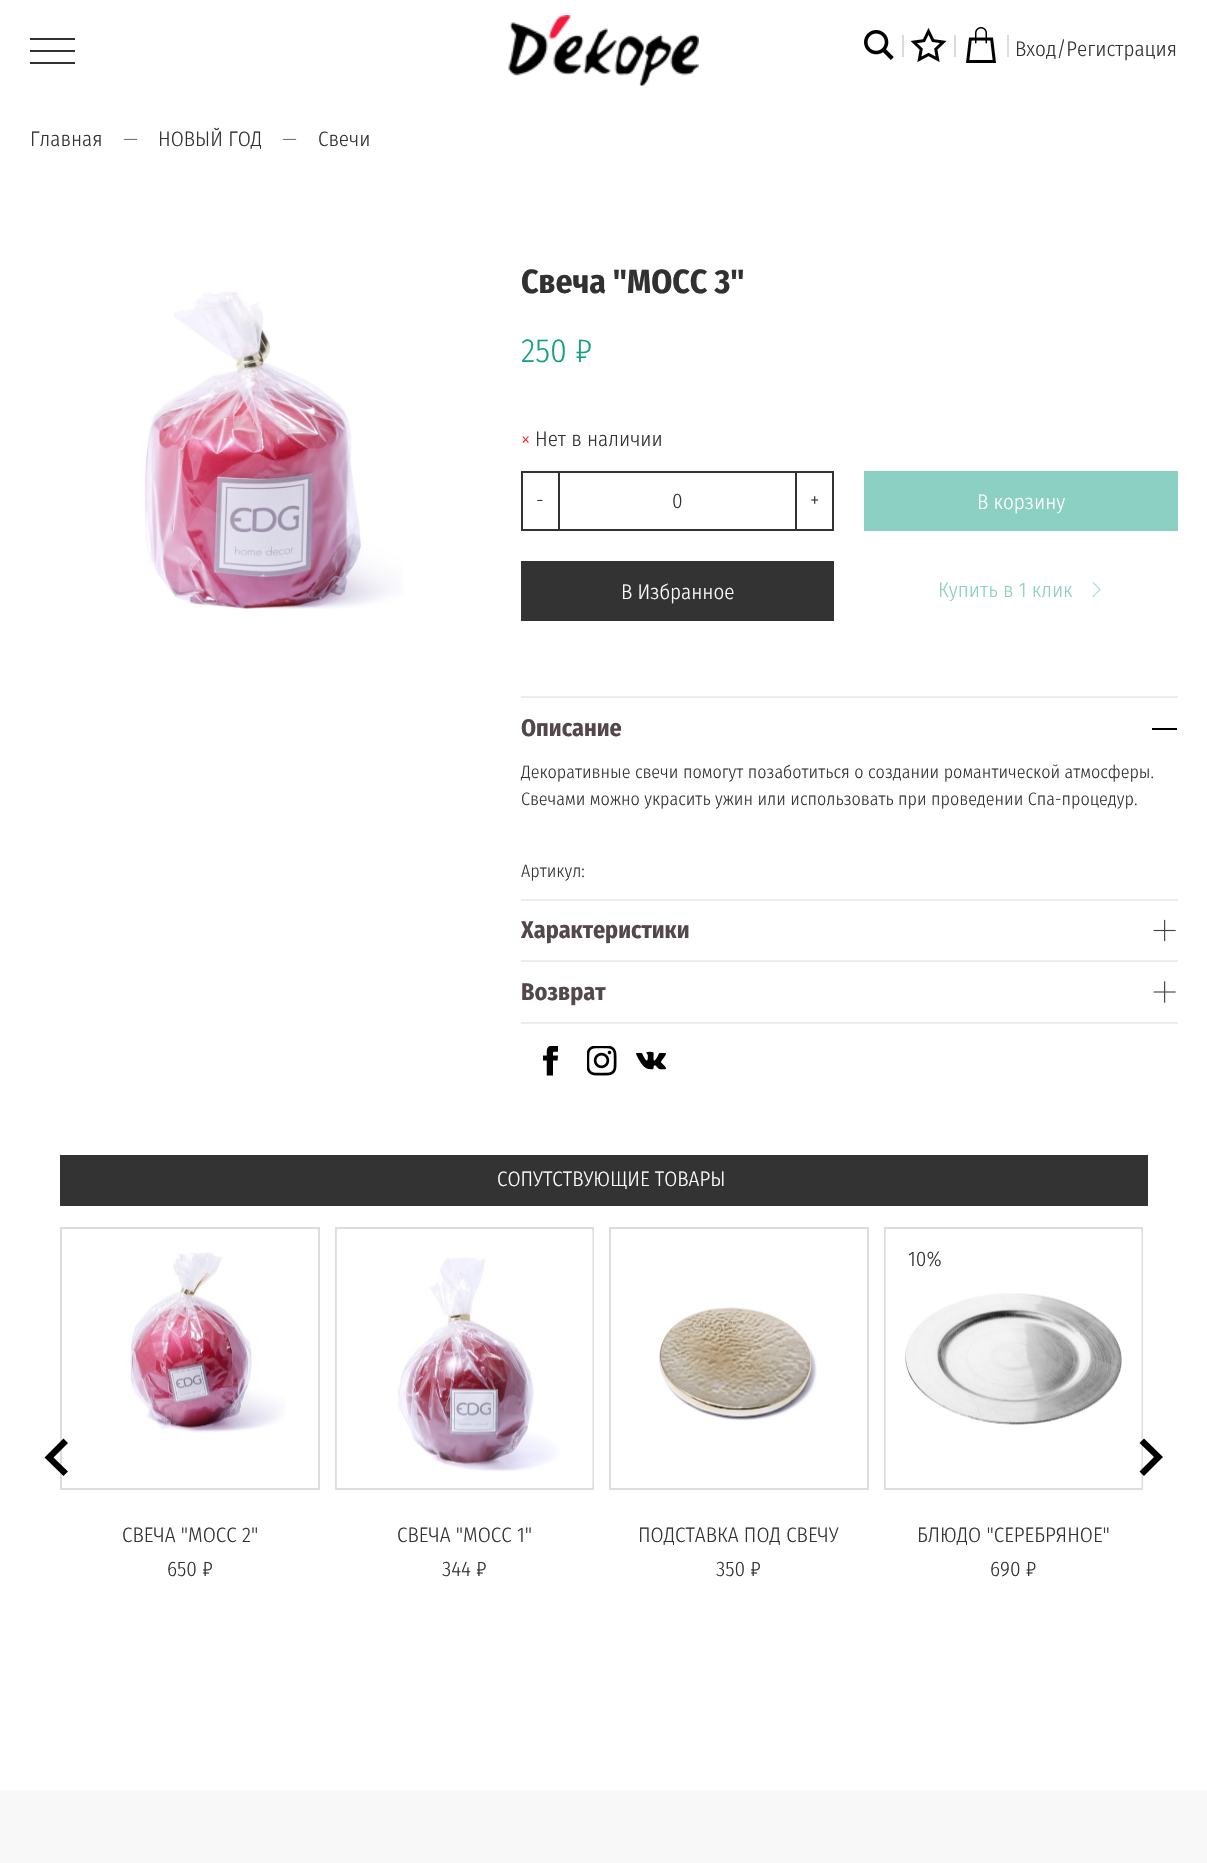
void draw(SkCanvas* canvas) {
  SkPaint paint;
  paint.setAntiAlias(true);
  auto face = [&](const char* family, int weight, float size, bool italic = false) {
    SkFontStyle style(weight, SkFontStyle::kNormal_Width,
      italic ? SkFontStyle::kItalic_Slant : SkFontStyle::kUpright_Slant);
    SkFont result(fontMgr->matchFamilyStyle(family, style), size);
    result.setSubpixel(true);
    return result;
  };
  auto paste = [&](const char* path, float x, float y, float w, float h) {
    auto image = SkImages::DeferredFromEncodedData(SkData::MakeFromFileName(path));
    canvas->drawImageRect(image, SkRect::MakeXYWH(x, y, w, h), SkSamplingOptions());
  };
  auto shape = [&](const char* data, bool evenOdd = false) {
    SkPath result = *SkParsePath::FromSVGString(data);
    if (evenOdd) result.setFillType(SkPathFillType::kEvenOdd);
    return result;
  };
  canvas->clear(0xffffffff);
  {
    const struct { float x, y, w, h; SkColor color; } items[] = {
      {30, 38, 45, 2, 0xff313131},
      {30, 50, 45, 2, 0xff313131},
      {30, 62, 45, 2, 0xff313131},
    };
    for (auto [x, y, w, h, color] : items) {
      paint.setColor(color);
      canvas->drawRect(SkRect::MakeXYWH(x, y, w, h), paint);
    }
  }
  paste("img/1.png", 508, 15, 191, 71);
  paste("img/2.png", 864, 30, 30, 30);
  paint.setColor(0xffdbdbdb);
  canvas->drawRect(SkRect::MakeXYWH(902, 35, 2, 22), paint);
  paste("img/3.png", 911, 28, 36, 34);
  canvas->drawRect(SkRect::MakeXYWH(954, 35, 2, 22), paint);
  paste("img/4.png", 966, 27, 30, 36);
  canvas->drawRect(SkRect::MakeXYWH(1007, 35, 2, 22), paint);
  paste("img/5.png", 144, 291, 259, 318);
  paint.setStroke(true);
  paint.setStrokeWidth(2);
  paint.setColor(0xff333333);
  canvas->drawRect(SkRect::MakeXYWH(522, 472, 311, 58), paint);
  paint.setStroke(false);
  {
    const struct { float x, y, w, h; SkColor color; } items[] = {
      {558, 473, 2, 57, 0xff333333},
      {795, 473, 2, 57, 0xff333333},
      {864, 471, 314, 60, 0xff8bd0c2},
      {521, 561, 313, 60, 0xff333333},
    };
    for (auto [x, y, w, h, color] : items) {
      paint.setColor(color);
      canvas->drawRect(SkRect::MakeXYWH(x, y, w, h), paint);
    }
  }
  paste("img/6.png", 1092, 582, 9, 15);
  {
    const struct { float x, y, w, h; SkColor color; } items[] = {
      {521, 1022, 657, 2, 0xffededed},
      {521, 696, 657, 2, 0xffededed},
      {1152, 728, 25, 2, 0xff000000},
      {521, 899, 657, 2, 0xffededed},
    };
    for (auto [x, y, w, h, color] : items) {
      paint.setColor(color);
      canvas->drawRect(SkRect::MakeXYWH(x, y, w, h), paint);
    }
  }
  paste("img/7.png", 1153, 919, 23, 23);
  canvas->drawRect(SkRect::MakeXYWH(521, 960, 657, 2), paint);
  paste("img/8.png", 1153, 981, 23, 22);
  paste("img/9.png", 543, 1046, 15, 30);
  paste("img/10.png", 587, 1046, 30, 30);
  paste("img/11.png", 636, 1051, 30, 19);
  paint.setColor(0xff333333);
  canvas->drawRect(SkRect::MakeXYWH(60, 1155, 1088, 51), paint);
  paint.setStroke(true);
  paint.setColor(0xffdddddd);
  canvas->drawRect(SkRect::MakeXYWH(61, 1228, 258, 261), paint);
  paste("img/12.png", 130, 1252, 155, 181);
  canvas->drawRect(SkRect::MakeXYWH(336, 1228, 257, 261), paint);
  paste("img/13.png", 336, 1230, 257, 258);
  canvas->drawRect(SkRect::MakeXYWH(610, 1228, 258, 261), paint);
  paste("img/14.png", 659, 1307, 158, 114);
  canvas->drawRect(SkRect::MakeXYWH(885, 1228, 257, 261), paint);
  paste("img/15.png", 885, 1230, 257, 258);
  paint.setStroke(false);
  paint.setColor(0xff000000);
  canvas->drawPath(shape("M63.5 1438.5L68 1443L53.5 1457.5L68 1471.5L63.5 1476L44.5 1457.5Z"), paint);
  canvas->drawPath(shape("M1144 1476L1139.5 1471.5L1154 1457L1139.5 1443L1144 1438.5L1163 1457Z"), paint);
  paint.setColor(0xfff8f8f8);
  canvas->drawRect(SkRect::MakeXYWH(0, 1790, 1207, 73), paint);
  auto f0 = face("Fira Sans Condensed", 300, 21);
  paint.setColor(0xff313131);
  canvas->drawString("Вход/Регистрация", 1015, 56, f0, paint);
  canvas->drawString("Главная", 30, 146, f0, paint);
  paint.setColor(0xff6f6f6f);
  canvas->drawString("—", 123, 146, f0, paint);
  paint.setColor(0xff313131);
  canvas->drawString("НОВЫЙ ГОД", 158, 146, f0, paint);
  paint.setColor(0xff6f6f6f);
  canvas->drawString("—", 282, 146, f0, paint);
  paint.setColor(0xff313131);
  canvas->drawString("Свечи", 318, 146, f0, paint);
  auto f1 = face("Fira Sans Condensed", 700, 33.5f);
  canvas->drawString("Свеча \"МОСС 3\"", 521, 293, f1, paint);
  auto f2 = face("Fira Sans Condensed", 300, 33.5f);
  paint.setColor(0xff16a085);
  canvas->drawString("250 ₽", 521, 362, f2, paint);
  paint.setColor(0xffff1b1b);
  canvas->drawString("×", 521, 446, f0, paint);
  paint.setColor(0xff313131);
  {
    const struct { const char* s; float x, y; } items[] = {
      {"Нет в наличии", 535, 446},
      {"-", 536, 507},
      {"0", 672, 508},
      {"+", 810, 507},
    };
    for (auto [s, x, y] : items) {
      canvas->drawString(s, x, y, f0, paint);
    }
  }
  paint.setColor(0xffffffff);
  canvas->drawString("В корзину", 977, 509, f0, paint);
  canvas->drawString("В Избранное", 621, 599, f0, paint);
  paint.setColor(0xff8bd0c2);
  canvas->drawString("Купить в 1 клик", 938, 597, f0, paint);
  auto f3 = face("Fira Sans Condensed", 700, 24);
  paint.setColor(0xff53474c);
  canvas->drawString("Описание", 521, 736, f3, paint);
  auto f4 = face("Fira Sans Condensed", 300, 18);
  paint.setColor(0xff313131);
  {
    const struct { const char* s; float x, y; } items[] = {
      {"Декоративные свечи помогут позаботиться о создании романтической атмосферы.", 521, 778},
      {"Свечами можно украсить ужин или использовать при проведении Спа-процедур.", 521, 805},
      {"Артикул:", 521, 877},
    };
    for (auto [s, x, y] : items) {
      canvas->drawString(s, x, y, f4, paint);
    }
  }
  paint.setColor(0xff53474c);
  canvas->drawString("Характеристики", 521, 938, f3, paint);
  canvas->drawString("Возврат", 521, 1000, f3, paint);
  paint.setColor(0xffffffff);
  canvas->drawString("СОПУТСТВУЮЩИЕ ТОВАРЫ", 497, 1186, f0, paint);
  paint.setColor(0xff313131);
  {
    const struct { const char* s; float x, y; } items[] = {
      {"СВЕЧА \"МОСС 2\"", 122, 1542},
      {"650 ₽", 167, 1576},
      {"СВЕЧА \"МОСС 1\"", 397, 1542},
      {"344 ₽", 442, 1576},
      {"ПОДСТАВКА ПОД СВЕЧУ", 638, 1542},
      {"350 ₽", 716, 1576},
      {"10%", 908, 1266},
      {"БЛЮДО \"СЕРЕБРЯНОЕ\"", 917, 1542},
      {"690 ₽", 990, 1576},
    };
    for (auto [s, x, y] : items) {
      canvas->drawString(s, x, y, f0, paint);
    }
  }
}
